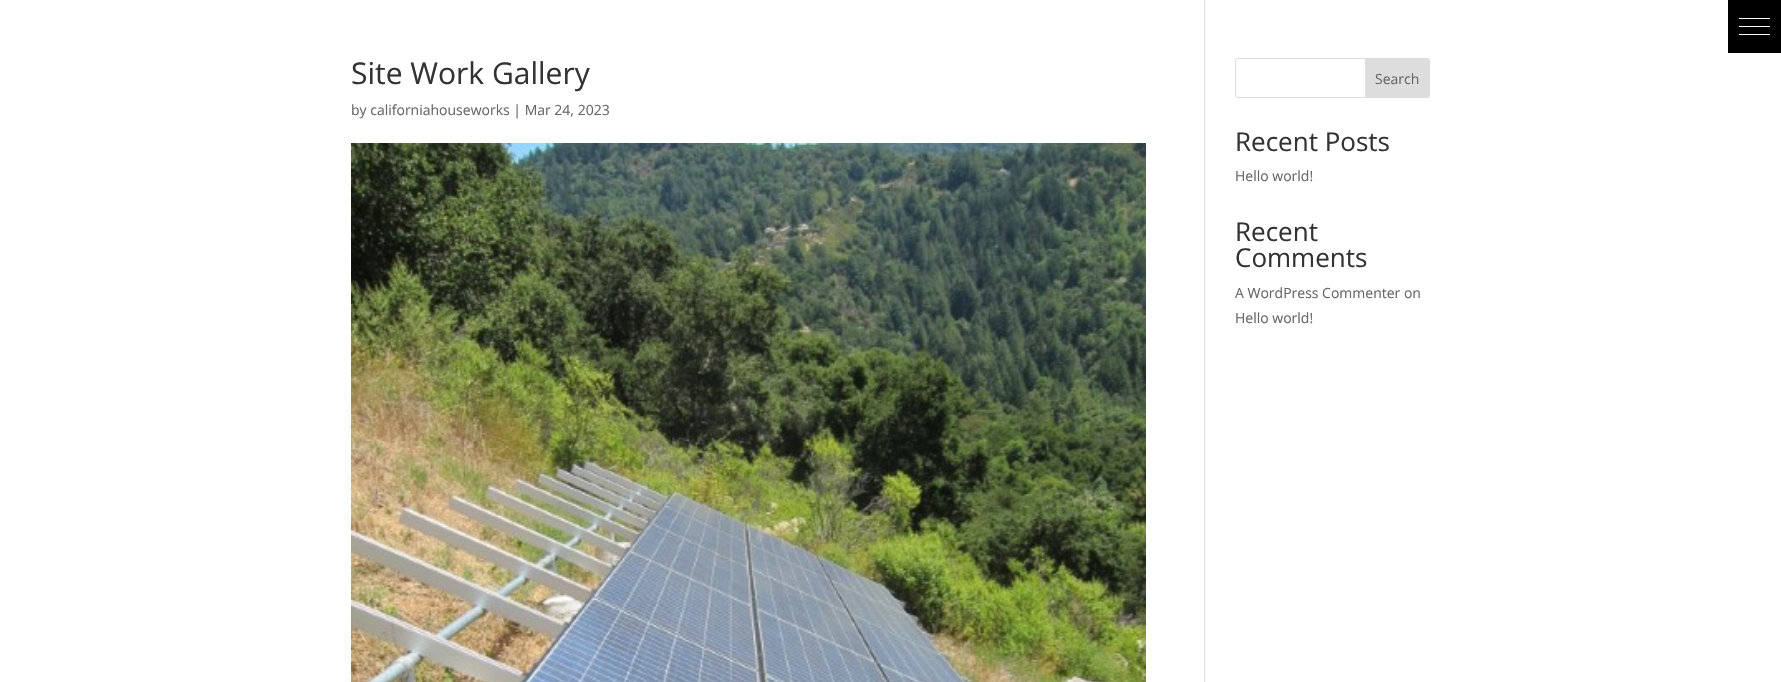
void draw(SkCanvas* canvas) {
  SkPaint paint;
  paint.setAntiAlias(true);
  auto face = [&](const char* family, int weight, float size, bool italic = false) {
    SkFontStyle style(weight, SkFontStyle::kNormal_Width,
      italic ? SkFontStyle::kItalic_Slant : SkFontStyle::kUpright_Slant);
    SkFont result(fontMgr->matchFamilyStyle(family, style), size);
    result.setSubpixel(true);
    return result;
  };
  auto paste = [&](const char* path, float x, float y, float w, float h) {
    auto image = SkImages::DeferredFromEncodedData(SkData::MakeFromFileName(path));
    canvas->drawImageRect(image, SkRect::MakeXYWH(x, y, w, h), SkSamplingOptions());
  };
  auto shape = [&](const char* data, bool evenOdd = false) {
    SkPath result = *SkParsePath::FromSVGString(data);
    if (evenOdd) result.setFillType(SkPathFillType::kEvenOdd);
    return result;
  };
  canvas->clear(0xffffffff);
  {
    const struct { float x, y, w, h; SkColor color; } items[] = {
      {1728, 0, 53, 53, 0xff000000},
      {1739, 26, 31, 1, 0xffffffff},
      {1739, 18, 31, 1, 0xffffffff},
      {1739, 34, 31, 1, 0xffffffff},
      {1204, 0, 1, 682, 0xffe2e2e2},
    };
    for (auto [x, y, w, h, color] : items) {
      paint.setColor(color);
      canvas->drawRect(SkRect::MakeXYWH(x, y, w, h), paint);
    }
  }
  paste("img/1.png", 351, 143, 795, 539);
  paint.setStroke(true);
  paint.setStrokeWidth(1);
  paint.setColor(0xffdddddd);
  canvas->drawRoundRect(SkRect::MakeXYWH(1235.5f, 58.5f, 194, 39), 2.5f, 2.5f, paint);
  paint.setStroke(false);
  canvas->drawPath(shape("M1365.5 58.5H1427C1428.5 58.5 1429.5 59.5 1429.5 61V95C1429.5 96.5 1428.5 97.5 1427 97.5H1365.5Z"), paint);
  paint.setStroke(true);
  canvas->drawPath(shape("M1365.5 58.5H1427C1428.5 58.5 1429.5 59.5 1429.5 61V95C1429.5 96.5 1428.5 97.5 1427 97.5H1365.5Z"), paint);
  auto f0 = face("Open Sans", 400, 30);
  paint.setStroke(false);
  paint.setColor(0xff333333);
  canvas->drawString("Site Work Gallery", 351, 84, f0, paint);
  auto f1 = face("Open Sans", 400, 14);
  paint.setColor(0xff666666);
  canvas->drawString("by californiahouseworks | Mar 24, 2023", 351, 115, f1, paint);
  canvas->drawString("Search", 1375, 84, f1, paint);
  auto f2 = face("Open Sans", 400, 26);
  paint.setColor(0xff333333);
  canvas->drawString("Recent Posts", 1235, 151, f2, paint);
  paint.setColor(0xff666666);
  canvas->drawString("Hello world!", 1235, 181, f1, paint);
  paint.setColor(0xff333333);
  canvas->drawString("Recent", 1235, 241, f2, paint);
  canvas->drawString("Comments", 1235, 267, f2, paint);
  paint.setColor(0xff666666);
  canvas->drawString("A WordPress Commenter on", 1235, 298, f1, paint);
  canvas->drawString("Hello world!", 1235, 323, f1, paint);
}
